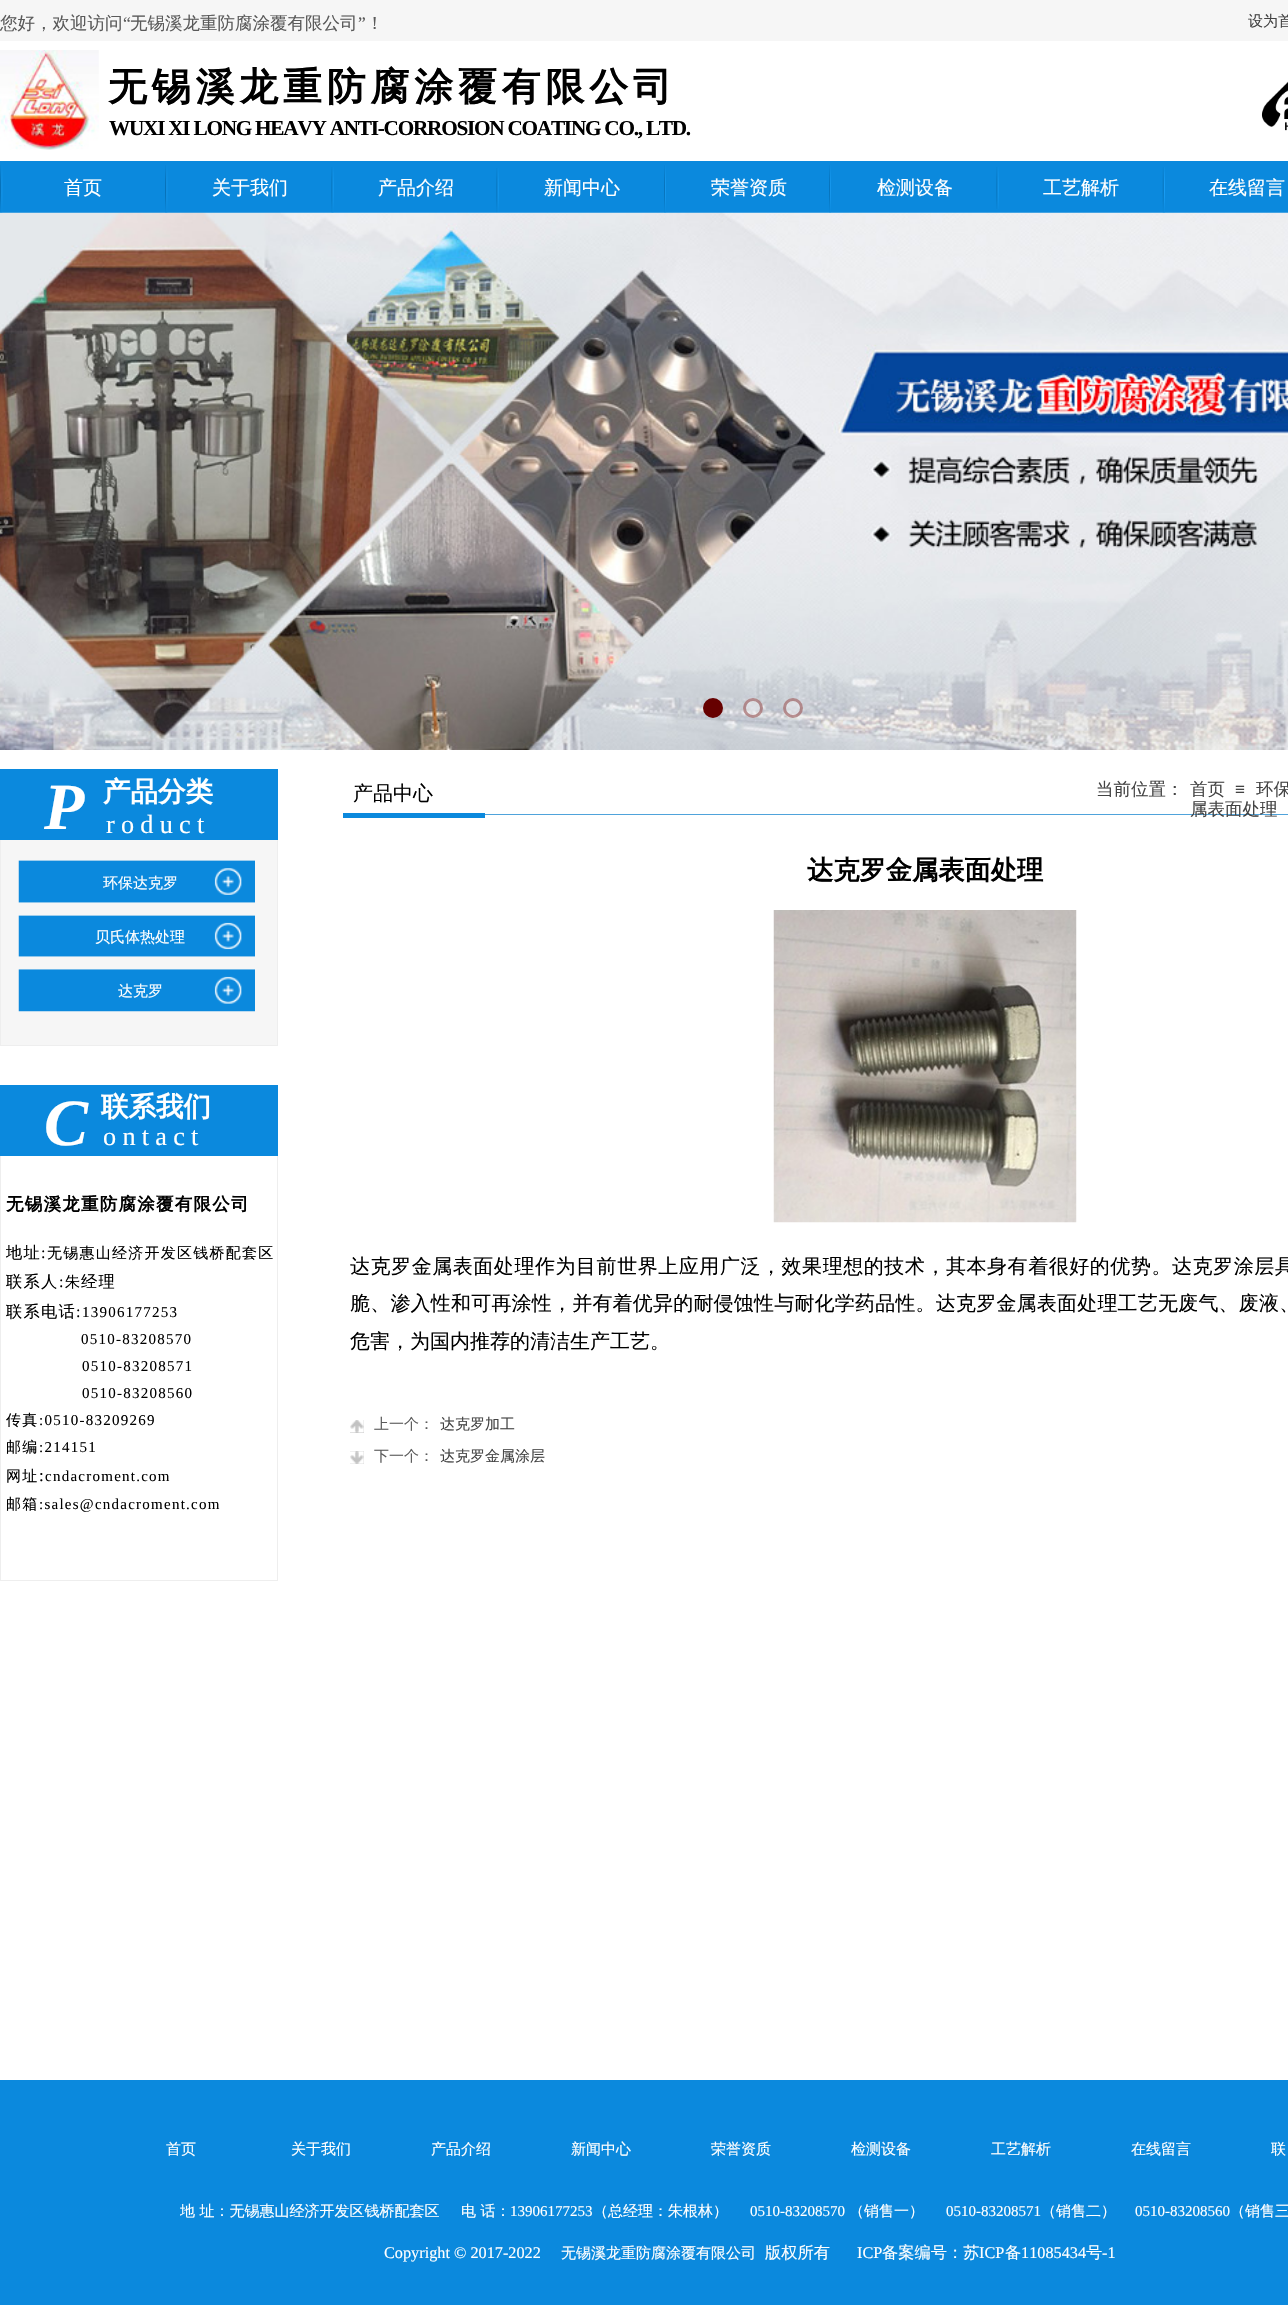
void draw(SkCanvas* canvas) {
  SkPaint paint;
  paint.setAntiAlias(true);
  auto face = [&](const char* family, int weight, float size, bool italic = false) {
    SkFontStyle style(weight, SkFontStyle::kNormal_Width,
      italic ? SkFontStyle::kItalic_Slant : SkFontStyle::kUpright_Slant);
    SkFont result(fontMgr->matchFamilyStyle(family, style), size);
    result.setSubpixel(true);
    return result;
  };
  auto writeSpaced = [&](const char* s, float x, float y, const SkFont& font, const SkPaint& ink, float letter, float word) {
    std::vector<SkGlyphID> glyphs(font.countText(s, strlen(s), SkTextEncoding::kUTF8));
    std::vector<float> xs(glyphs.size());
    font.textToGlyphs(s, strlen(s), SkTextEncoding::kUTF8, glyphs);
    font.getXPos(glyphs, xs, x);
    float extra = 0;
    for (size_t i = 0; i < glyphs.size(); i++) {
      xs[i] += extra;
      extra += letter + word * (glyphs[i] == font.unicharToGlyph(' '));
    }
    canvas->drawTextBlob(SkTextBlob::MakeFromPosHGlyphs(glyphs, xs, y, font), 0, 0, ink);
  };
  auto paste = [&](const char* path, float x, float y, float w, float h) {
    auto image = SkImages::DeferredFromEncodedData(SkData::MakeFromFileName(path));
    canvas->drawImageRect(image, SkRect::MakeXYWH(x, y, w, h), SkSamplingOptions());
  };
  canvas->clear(0xffffffff);
  paint.setColor(0xfff6f6f6);
  canvas->drawRect(SkRect::MakeXYWH(0, 0, 1288, 41), paint);
  paste("img/1.png", 0, 50, 99, 100);
  paste("img/2.png", 1261, 81, 27, 50);
  paint.setColor(0xff0b89dd);
  canvas->drawRect(SkRect::MakeXYWH(0, 161, 1288, 52), paint);
  paste("img/9.png", 496, 168, 3, 45);
  paste("img/11.png", 0, 212, 1288, 538);
  paste("img/3.png", 0, 165, 3, 48);
  paste("img/4.png", 165, 165, 3, 48);
  paste("img/5.png", 331, 167, 3, 46);
  paste("img/6.png", 664, 165, 2, 48);
  paste("img/7.png", 829, 165, 2, 48);
  paste("img/8.png", 1162, 167, 3, 46);
  paste("img/10.png", 996, 167, 3, 42);
  paint.setColor(0xff660000);
  canvas->drawCircle(713, 708, 8.5f, paint);
  paint.setStroke(true);
  paint.setStrokeWidth(3);
  canvas->drawCircle(713, 708, 8.5f, paint);
  paint.setStroke(false);
  paint.setColor(0x66ffffff);
  canvas->drawCircle(753, 708, 10, paint);
  paint.setStroke(true);
  paint.setColor(0x66660000);
  canvas->drawCircle(753, 708, 8.5f, paint);
  paint.setStroke(false);
  paint.setColor(0x66ffffff);
  canvas->drawCircle(793, 708, 10, paint);
  paint.setStroke(true);
  paint.setColor(0x66660000);
  canvas->drawCircle(793, 708, 8.5f, paint);
  paint.setStroke(false);
  paint.setColor(0xfff6f6f6);
  canvas->drawRect(SkRect::MakeXYWH(1, 840, 276, 205), paint);
  paint.setStroke(true);
  paint.setStrokeWidth(1);
  paint.setColor(0xffeeeeee);
  canvas->drawRect(SkRect::MakeXYWH(0.5f, 776.5f, 277, 269), paint);
  paint.setStroke(false);
  {
    const struct { float x, y, w, h; SkColor color; } items[] = {
      {0, 769, 278, 71, 0xff0b89dd},
      {343, 813, 142, 5, 0xff0b89dd},
      {485, 814, 803, 1, 0xff4fa3db},
    };
    for (auto [x, y, w, h, color] : items) {
      paint.setColor(color);
      canvas->drawRect(SkRect::MakeXYWH(x, y, w, h), paint);
    }
  }
  paste("img/12.png", 18, 860, 237, 43);
  paste("img/13.png", 18, 915, 237, 42);
  paste("img/14.png", 18, 969, 237, 43);
  paste("img/15.png", 773, 910, 304, 313);
  paint.setColor(0xffc2c2c2);
  canvas->drawRect(SkRect::MakeXYWH(350, 1420, 14, 13), paint);
  paste("img/16.png", 350, 1420, 14, 13);
  canvas->drawRect(SkRect::MakeXYWH(350, 1451, 14, 13), paint);
  paste("img/17.png", 350, 1451, 14, 13);
  paint.setStroke(true);
  paint.setColor(0xffeeeeee);
  canvas->drawRect(SkRect::MakeXYWH(0.5f, 1111.5f, 277, 469), paint);
  paint.setStroke(false);
  paint.setColor(0xff0b89dd);
  canvas->drawRect(SkRect::MakeXYWH(0, 1085, 278, 71), paint);
  canvas->drawRect(SkRect::MakeXYWH(0, 2080, 1288, 225), paint);
  auto f0 = face("WenQuanYi Zen Hei", 500, 17.5f);
  paint.setColor(0xff5a5a5a);
  canvas->drawString("您好，欢迎访问", 0, 29, f0, paint);
  auto f1 = face("Liberation Serif", 400, 17.5f);
  canvas->drawString("“", 123, 29, f1, paint);
  canvas->drawString("无锡溪龙重防腐涂覆有限公司", 130, 29, f0, paint);
  canvas->drawString("”", 358, 29, f1, paint);
  canvas->drawString("！", 366, 29, f0, paint);
  auto f2 = face("WenQuanYi Zen Hei", 500, 15);
  paint.setColor(0xff434343);
  canvas->drawString("设为首", 1248, 26, f2, paint);
  auto f3 = face("WenQuanYi Zen Hei", 700, 38.75f);
  paint.setColor(0xff000000);
  writeSpaced("无锡溪龙重防腐涂覆有限公司", 108, 100, f3, paint, 5, 0);
  auto f4 = face("Liberation Serif", 700, 21.25f);
  writeSpaced("WUXI XI LONG HEAVY ANTI-CORROSION COATING CO., LTD.", 109, 135, f4, paint, -1.25f, 0);
  auto f5 = face("WenQuanYi Zen Hei", 500, 19);
  paint.setColor(0xffffffff);
  {
    const struct { const char* s; float x, y; } items[] = {
      {"首页", 64, 194},
      {"关于我们", 212, 194},
      {"产品介绍", 378, 194},
      {"新闻中心", 544, 194},
      {"荣誉资质", 711, 194},
      {"检测设备", 877, 194},
      {"工艺解析", 1043, 194},
      {"在线留言", 1209, 194},
    };
    for (auto [s, x, y] : items) {
      canvas->drawString(s, x, y, f5, paint);
    }
  }
  auto f6 = face("Liberation Serif", 700, 66, true);
  canvas->drawString("P", 44, 829, f6, paint);
  auto f7 = face("WenQuanYi Zen Hei", 700, 27.5f);
  canvas->drawString("产品分类", 103, 801, f7, paint);
  auto f8 = face("WenQuanYi Zen Hei", 500, 20);
  paint.setColor(0xff000000);
  canvas->drawString("产品中心", 353, 800, f8, paint);
  paint.setColor(0xff434343);
  canvas->drawString("当前位置：", 1096, 795, f0, paint);
  canvas->drawString("首页", 1190, 795, f0, paint);
  auto f9 = face("Liberation Sans", 400, 17);
  canvas->drawString("≡", 1235, 795, f9, paint);
  canvas->drawString("环保", 1256, 795, f0, paint);
  canvas->drawString("属表面处理", 1190, 815, f0, paint);
  auto f10 = face("Liberation Serif", 400, 26.25f);
  paint.setColor(0xffffffff);
  writeSpaced("roduct", 106, 833, f10, paint, 6.25f, 0);
  {
    const struct { const char* s; float x, y; } items[] = {
      {"环保达克罗", 103, 888},
      {"贝氏体热处理", 95, 942},
      {"达克罗", 118, 996},
    };
    for (auto [s, x, y] : items) {
      canvas->drawString(s, x, y, f2, paint);
    }
  }
  auto f11 = face("WenQuanYi Zen Hei", 700, 26.25f);
  paint.setColor(0xff000000);
  canvas->drawString("达克罗金属表面处理", 807, 879, f11, paint);
  writeSpaced("达克罗金属表面处理作为目前世界上应用广泛，效果理想的技术，其本身有着很好的优势。达克罗涂层具", 350, 1273, f8, paint, 0.55f, 0);
  writeSpaced("脆、渗入性和可再涂性，并有着优异的耐侵蚀性与耐化学药品性。达克罗金属表面处理工艺无废气、废液、", 350, 1310, f8, paint, 0.2f, 0);
  canvas->drawString("危害，为国内推荐的清洁生产工艺。", 350, 1348, f8, paint);
  paint.setColor(0xff5a5a5a);
  canvas->drawString("上一个：", 374, 1429, f2, paint);
  paint.setColor(0xff434343);
  canvas->drawString("达克罗加工", 440, 1429, f2, paint);
  paint.setColor(0xff5a5a5a);
  canvas->drawString("下一个：", 374, 1461, f2, paint);
  paint.setColor(0xff434343);
  canvas->drawString("达克罗金属涂层", 440, 1461, f2, paint);
  paint.setColor(0xffffffff);
  canvas->drawString("C", 44, 1145, f6, paint);
  canvas->drawString("联系我们", 101, 1116, f7, paint);
  writeSpaced("ontact", 103, 1145, f10, paint, 6.25f, 0);
  auto f12 = face("WenQuanYi Zen Hei", 700, 17.5f);
  paint.setColor(0xff000000);
  writeSpaced("无锡溪龙重防腐涂覆有限公司", 6, 1210, f12, paint, 1.25f, 0);
  auto f13 = face("WenQuanYi Zen Hei", 500, 16.25f);
  writeSpaced("地址", 6, 1258, f13, paint, 1.25f, 0);
  auto f14 = face("Liberation Serif", 400, 16.25f);
  writeSpaced(":", 41, 1258, f14, paint, 1.25f, 0);
  writeSpaced("无锡惠山经济开发区钱桥配套区", 47, 1258, f2, paint, 1.25f, 0);
  writeSpaced("联系人", 6, 1287, f13, paint, 1.25f, 0);
  writeSpaced(":", 59, 1287, f14, paint, 1.25f, 0);
  writeSpaced("朱", 65, 1287, f2, paint, 1.25f, 0);
  writeSpaced("经理", 81, 1287, f13, paint, 1.25f, 0);
  writeSpaced("联系电话", 6, 1317, f13, paint, 1.25f, 0);
  writeSpaced(":", 76, 1317, f14, paint, 1.25f, 0);
  auto f15 = face("Liberation Serif", 400, 15);
  {
    const struct { const char* s; float x, y; } items[] = {
      {"13906177253", 82, 1317},
      {"0510-83208570", 81, 1344},
      {"0510-83208571", 82, 1371},
      {"0510-83208560", 82, 1398},
    };
    for (auto [s, x, y] : items) {
      writeSpaced(s, x, y, f15, paint, 1.25f, 0);
    }
  }
  writeSpaced("传真", 6, 1425, f2, paint, 1.25f, 0);
  writeSpaced(":0510-83209269", 39, 1425, f15, paint, 1.25f, 0);
  writeSpaced("邮编", 6, 1452, f2, paint, 1.25f, 0);
  writeSpaced(":214151", 39, 1452, f15, paint, 1.25f, 0);
  writeSpaced("网址", 6, 1481, f2, paint, 1.25f, 0);
  auto f16 = face("Liberation Serif", 400, 17);
  writeSpaced(":", 39, 1481, f16, paint, 1.25f, 0);
  writeSpaced("cndacroment.com", 45, 1481, f15, paint, 1.25f, 0);
  writeSpaced("邮箱", 6, 1509, f2, paint, 1.25f, 0);
  writeSpaced(":sales@cndacroment.com", 39, 1509, f15, paint, 1.25f, 0);
  paint.setColor(0xffffffff);
  {
    const struct { const char* s; float x, y; } items[] = {
      {"首页", 166, 2154},
      {"关于我们", 291, 2154},
      {"产品介绍", 431, 2154},
      {"新闻中心", 571, 2154},
      {"荣誉资质", 711, 2154},
      {"检测设备", 851, 2154},
      {"工艺解析", 991, 2154},
      {"在线留言", 1131, 2154},
      {"联", 1271, 2154},
      {"地 址：无锡惠山经济开发区钱桥配套区", 180, 2216},
      {"电 话：", 461, 2216},
    };
    for (auto [s, x, y] : items) {
      canvas->drawString(s, x, y, f2, paint);
    }
  }
  canvas->drawString("13906177253", 510, 2216, f15, paint);
  canvas->drawString("（总经理：朱根林）", 593, 2216, f2, paint);
  canvas->drawString("0510-83208570", 750, 2216, f15, paint);
  canvas->drawString("（销售一）", 849, 2216, f2, paint);
  canvas->drawString("0510-83208571", 946, 2216, f15, paint);
  canvas->drawString("（销售二）", 1041, 2216, f2, paint);
  canvas->drawString("0510-83208560", 1135, 2216, f15, paint);
  canvas->drawString("（销售三", 1230, 2216, f2, paint);
  canvas->drawString("Copyright © 2017-2022", 384, 2258, f14, paint);
  canvas->drawString("无锡溪龙重防腐涂覆有限公司", 561, 2258, f2, paint);
  canvas->drawString("版权所有", 765, 2258, f13, paint);
  canvas->drawString("ICP", 857, 2258, f14, paint);
  canvas->drawString("备案编号：苏", 882, 2258, f13, paint);
  canvas->drawString("ICP", 979, 2258, f14, paint);
  canvas->drawString("备", 1005, 2258, f13, paint);
  canvas->drawString("11085434", 1021, 2258, f14, paint);
  canvas->drawString("号", 1086, 2258, f13, paint);
  canvas->drawString("-1", 1102, 2258, f14, paint);
}
